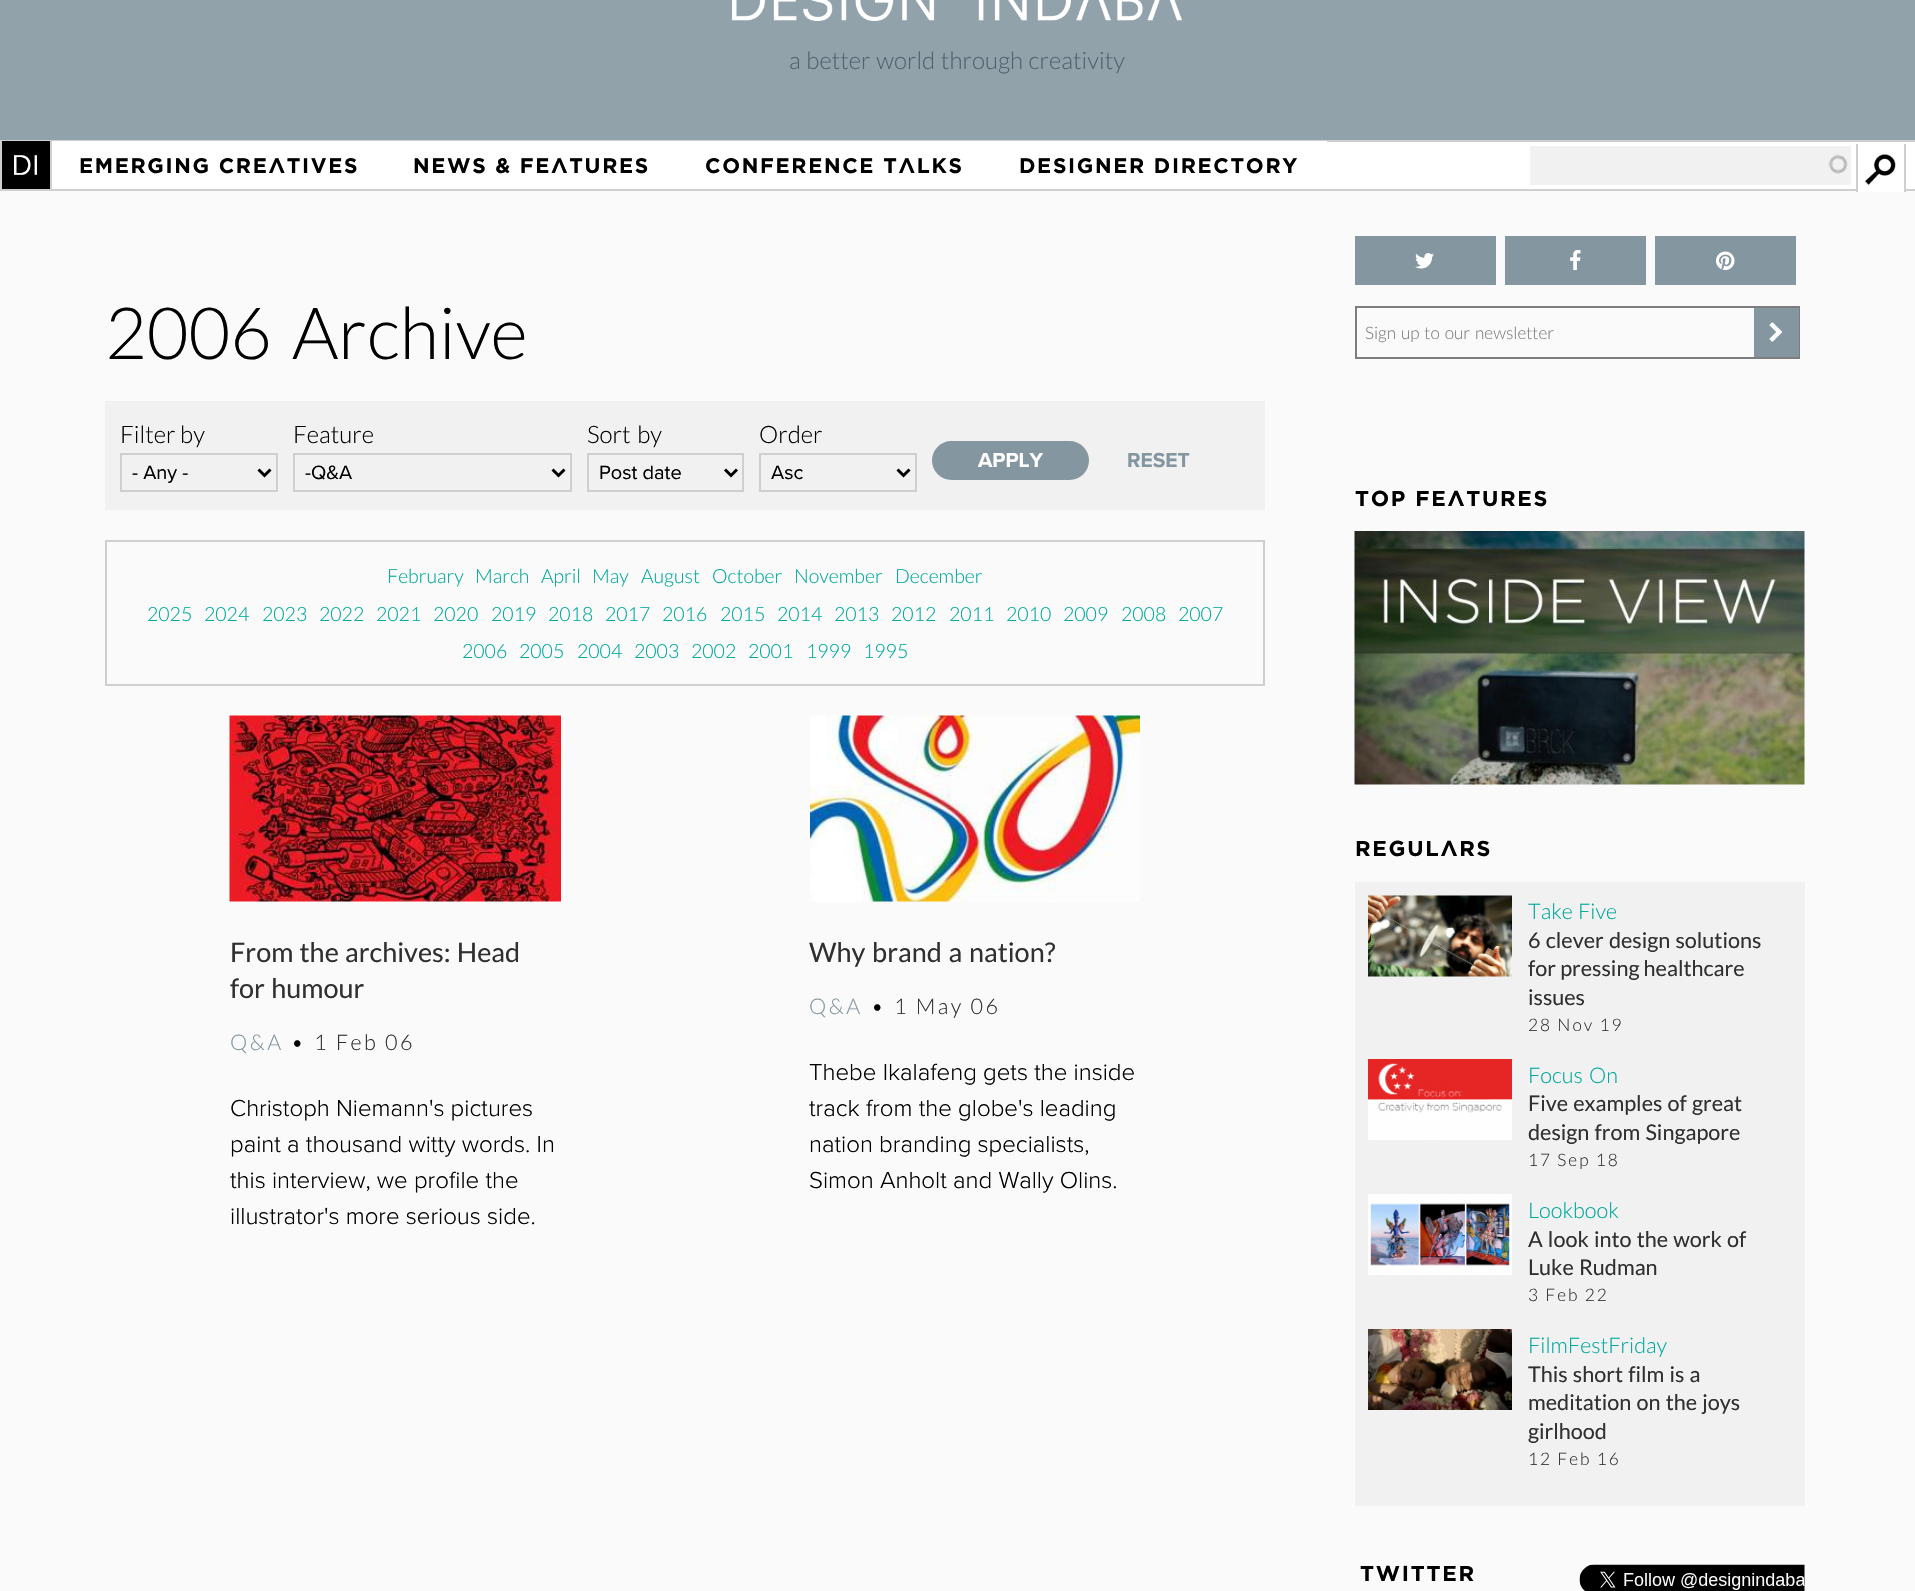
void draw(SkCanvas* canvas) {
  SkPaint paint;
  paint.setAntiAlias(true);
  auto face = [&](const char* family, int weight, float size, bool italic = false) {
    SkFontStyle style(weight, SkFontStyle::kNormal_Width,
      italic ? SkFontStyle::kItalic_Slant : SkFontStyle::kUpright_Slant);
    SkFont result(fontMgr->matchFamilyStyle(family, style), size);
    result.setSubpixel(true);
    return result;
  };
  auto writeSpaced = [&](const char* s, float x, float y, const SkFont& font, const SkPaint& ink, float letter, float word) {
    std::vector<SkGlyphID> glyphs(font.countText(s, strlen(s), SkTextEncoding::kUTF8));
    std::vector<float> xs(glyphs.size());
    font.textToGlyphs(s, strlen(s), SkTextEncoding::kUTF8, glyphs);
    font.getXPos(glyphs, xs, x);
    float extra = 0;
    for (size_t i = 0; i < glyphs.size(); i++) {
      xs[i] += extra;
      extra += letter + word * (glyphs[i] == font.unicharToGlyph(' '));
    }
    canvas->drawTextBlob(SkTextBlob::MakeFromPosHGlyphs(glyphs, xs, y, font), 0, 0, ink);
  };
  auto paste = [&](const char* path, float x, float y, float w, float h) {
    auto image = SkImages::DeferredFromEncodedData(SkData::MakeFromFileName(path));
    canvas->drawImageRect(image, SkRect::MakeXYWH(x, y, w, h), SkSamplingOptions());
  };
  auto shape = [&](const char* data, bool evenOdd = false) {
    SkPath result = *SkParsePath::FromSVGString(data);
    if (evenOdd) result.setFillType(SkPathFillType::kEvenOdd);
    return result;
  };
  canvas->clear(0xfffafafa);
  paint.setColor(0xff92a2ab);
  canvas->drawRect(SkRect::MakeXYWH(0, 0, 1915, 140), paint);
  paste("img/1.png", 732, 0, 450, 21);
  {
    const struct { float x, y, w, h; SkColor color; } items[] = {
      {1327, 142, 588, 47, 0xffffffff},
      {0, 140, 1915, 2, 0xffcfcfcf},
      {0, 189, 1915, 2, 0xffcfcfcf},
      {2, 141, 48, 48, 0xff000000},
    };
    for (auto [x, y, w, h, color] : items) {
      paint.setColor(color);
      canvas->drawRect(SkRect::MakeXYWH(x, y, w, h), paint);
    }
  }
  paste("img/2.png", 14, 155, 23, 20);
  {
    const struct { float x, y, w, h; SkColor color; } items[] = {
      {50, 141, 2, 48, 0xffcfcfcf},
      {0, 141, 2, 48, 0xffcfcfcf},
      {52, 141, 1275, 48, 0xffffffff},
      {1530, 146, 321, 39, 0xfff1f1f1},
    };
    for (auto [x, y, w, h, color] : items) {
      paint.setColor(color);
      canvas->drawRect(SkRect::MakeXYWH(x, y, w, h), paint);
    }
  }
  paste("img/3.png", 1828, 154, 20, 20);
  paint.setColor(0xffffffff);
  canvas->drawRect(SkRect::MakeXYWH(1858, 189, 46, 3), paint);
  paste("img/4.png", 1865, 154, 31, 32);
  {
    const struct { float x, y, w, h; SkColor color; } items[] = {
      {1904, 144, 2, 48, 0xffcfcfcf},
      {1856, 144, 2, 48, 0xffcfcfcf},
      {105, 401, 1160, 109, 0xfff1f1f1},
    };
    for (auto [x, y, w, h, color] : items) {
      paint.setColor(color);
      canvas->drawRect(SkRect::MakeXYWH(x, y, w, h), paint);
    }
  }
  paint.setStroke(true);
  paint.setStrokeWidth(2);
  paint.setColor(0xffcfcfcf);
  canvas->drawRect(SkRect::MakeXYWH(121, 454, 156, 37), paint);
  paint.setStrokeWidth(3);
  paint.setColor(0xff000000);
  canvas->drawPath(shape("M258.5 469.5L264.5 475.5L270.5 469.5"), paint);
  paint.setStrokeWidth(2);
  paint.setColor(0xffcfcfcf);
  canvas->drawRect(SkRect::MakeXYWH(294, 454, 277, 37), paint);
  paint.setStrokeWidth(3);
  paint.setColor(0xff000000);
  canvas->drawPath(shape("M552.5 469.5L558.5 475.5L564.5 469.5"), paint);
  paint.setStrokeWidth(2);
  paint.setColor(0xffcfcfcf);
  canvas->drawRect(SkRect::MakeXYWH(588, 454, 155, 37), paint);
  paint.setStrokeWidth(3);
  paint.setColor(0xff000000);
  canvas->drawPath(shape("M725 469.5L731 475.5L737 469.5"), paint);
  paint.setStrokeWidth(2);
  paint.setColor(0xffcfcfcf);
  canvas->drawRect(SkRect::MakeXYWH(760, 454, 156, 37), paint);
  paint.setStrokeWidth(3);
  paint.setColor(0xff000000);
  canvas->drawPath(shape("M897.5 469.5L903.5 475.5L909.5 469.5"), paint);
  paint.setStroke(false);
  paint.setColor(0xff8496a0);
  canvas->drawRoundRect(SkRect::MakeXYWH(932, 441, 157, 39), 19.5f, 19.5f, paint);
  paint.setStroke(true);
  paint.setStrokeWidth(2);
  paint.setColor(0xffcfcfcf);
  canvas->drawRect(SkRect::MakeXYWH(106, 541, 1158, 144), paint);
  paste("img/5.png", 229, 715, 332, 187);
  paste("img/6.png", 810, 715, 330, 187);
  paint.setStroke(false);
  paint.setColor(0xff8496a0);
  canvas->drawRect(SkRect::MakeXYWH(1355, 236, 141, 49), paint);
  paste("img/7.png", 1415, 253, 19, 16);
  canvas->drawRect(SkRect::MakeXYWH(1505, 236, 141, 49), paint);
  paste("img/8.png", 1570, 250, 11, 21);
  canvas->drawRect(SkRect::MakeXYWH(1655, 236, 141, 49), paint);
  paste("img/9.png", 1716, 251, 19, 19);
  paint.setStroke(true);
  paint.setColor(0xff7d7d7d);
  canvas->drawRect(SkRect::MakeXYWH(1356, 307, 443, 51), paint);
  paint.setStroke(false);
  paint.setColor(0xff8496a0);
  canvas->drawRect(SkRect::MakeXYWH(1754, 308, 45, 49), paint);
  paste("img/10.png", 1769, 322, 13, 20);
  paste("img/11.png", 1354, 531, 451, 254);
  paint.setColor(0xfff1f1f1);
  canvas->drawRect(SkRect::MakeXYWH(1355, 882, 450, 624), paint);
  paste("img/12.png", 1368, 895, 144, 82);
  paste("img/13.png", 1368, 1059, 144, 81);
  paste("img/14.png", 1368, 1194, 144, 81);
  paste("img/15.png", 1368, 1329, 144, 81);
  paste("img/16.png", 1579, 1564, 226, 27);
  auto f0 = face("Lato", 300, 24);
  paint.setColor(0xff4e636f);
  writeSpaced("a better world through creativity", 789, 69, f0, paint, 0, 1);
  auto f1 = face("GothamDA", 700, 21);
  paint.setColor(0xff000000);
  {
    const struct { const char* s; float x, y; } items[] = {
      {"EMERGING CREATIVES", 79, 173},
      {"NEWS & FEATURES", 413, 173},
      {"CONFERENCE TALKS", 705, 173},
      {"DESIGNER DIRECTORY", 1019, 173},
    };
    for (auto [s, x, y] : items) {
      writeSpaced(s, x, y, f1, paint, 1.7f, 0);
    }
  }
  auto f2 = face("Lato", 300, 72);
  writeSpaced("2006 Archive", 105, 359, f2, paint, 0, 6);
  canvas->drawString("Filter by", 120, 443, f0, paint);
  auto f3 = face("Proxima Nova", 400, 20);
  canvas->drawString("- Any -", 132, 479, f3, paint);
  canvas->drawString("Feature", 293, 443, f0, paint);
  canvas->drawString("-Q&A", 305, 479, f3, paint);
  writeSpaced("Sort by", 587, 443, f0, paint, 0, 2);
  canvas->drawString("Post date", 599, 479, f3, paint);
  canvas->drawString("Order", 759, 443, f0, paint);
  canvas->drawString("Asc", 771, 479, f3, paint);
  auto f4 = face("Proxima Nova", 700, 21);
  paint.setColor(0xffffffff);
  canvas->drawString("APPLY", 978, 467, f4, paint);
  paint.setColor(0xff8496a0);
  canvas->drawString("RESET", 1127, 467, f4, paint);
  auto f5 = face("Lato", 300, 19.5f);
  paint.setColor(0xff00a99d);
  {
    const struct { const char* s; float x, y; } items[] = {
      {"February", 387, 583},
      {"March", 475, 583},
      {"April", 541, 583},
      {"May", 592, 583},
      {"August", 641, 583},
      {"October", 712, 583},
      {"November", 794, 583},
      {"December", 895, 583},
      {"2025", 147, 621},
      {"2024", 204, 621},
      {"2023", 262, 621},
      {"2022", 319, 621},
      {"2021", 376, 621},
      {"2020", 433, 621},
      {"2019", 491, 621},
      {"2018", 548, 621},
      {"2017", 605, 621},
      {"2016", 662, 621},
      {"2015", 720, 621},
      {"2014", 777, 621},
      {"2013", 834, 621},
      {"2012", 891, 621},
      {"2011", 949, 621},
      {"2010", 1006, 621},
      {"2009", 1063, 621},
      {"2008", 1121, 621},
      {"2007", 1178, 621},
      {"2006", 462, 658},
      {"2005", 519, 658},
      {"2004", 577, 658},
      {"2003", 634, 658},
      {"2002", 691, 658},
      {"2001", 748, 658},
      {"1999", 806, 658},
      {"1995", 863, 658},
    };
    for (auto [s, x, y] : items) {
      canvas->drawString(s, x, y, f5, paint);
    }
  }
  auto f6 = face("Lato", 400, 27);
  paint.setColor(0xff303030);
  writeSpaced("From the archives: Head", 230, 962, f6, paint, 0, 1);
  writeSpaced("for humour", 230, 998, f6, paint, 0, 1);
  auto f7 = face("Lato", 300, 21.6f);
  paint.setColor(0xff8496a0);
  writeSpaced("Q&A", 230, 1050, f7, paint, 2.5f, 0);
  paint.setColor(0xff000000);
  writeSpaced("•", 291, 1050, f7, paint, 2.5f, 0);
  paint.setColor(0xff303030);
  writeSpaced("1 Feb 06", 314, 1050, f7, paint, 2.5f, 0);
  auto f8 = face("Proxima Nova", 300, 24);
  paint.setColor(0xff000000);
  {
    const struct { const char* s; float x, y; } items[] = {
      {"Christoph Niemann's pictures", 230, 1116},
      {"paint a thousand witty words. In", 230, 1152},
      {"this interview, we profile the", 230, 1188},
      {"illustrator's more serious side.", 230, 1224},
    };
    for (auto [s, x, y] : items) {
      canvas->drawString(s, x, y, f8, paint);
    }
  }
  paint.setColor(0xff303030);
  writeSpaced("Why brand a nation?", 809, 962, f6, paint, 0, 1.5f);
  paint.setColor(0xff8496a0);
  writeSpaced("Q&A", 809, 1014, f7, paint, 2.5f, 0);
  paint.setColor(0xff000000);
  writeSpaced("•", 871, 1014, f7, paint, 2.5f, 0);
  paint.setColor(0xff303030);
  writeSpaced("1 May 06", 894, 1014, f7, paint, 2.5f, 0);
  paint.setColor(0xff000000);
  {
    const struct { const char* s; float x, y; } items[] = {
      {"Thebe Ikalafeng gets the inside", 809, 1080},
      {"track from the globe's leading", 809, 1116},
      {"nation branding specialists,", 809, 1152},
      {"Simon Anholt and Wally Olins.", 809, 1188},
    };
    for (auto [s, x, y] : items) {
      canvas->drawString(s, x, y, f8, paint);
    }
  }
  auto f9 = face("Lato", 300, 17.25f);
  paint.setColor(0xff7d7d7d);
  writeSpaced("Sign up to our newsletter", 1365, 339, f9, paint, 0, 1.5f);
  auto f10 = face("GothamDA", 700, 21.6f);
  paint.setColor(0xff000000);
  writeSpaced("TOP FEATURES", 1355, 506, f10, paint, 1.75f, 0);
  writeSpaced("REGULARS", 1355, 856, f10, paint, 1.75f, 0);
  paint.setColor(0xff00a99d);
  writeSpaced("Take Five", 1528, 919, f7, paint, 0, 1);
  auto f11 = face("Lato", 400, 21.6f);
  paint.setColor(0xff303030);
  writeSpaced("6 clever design solutions", 1528, 948, f11, paint, 0, 1);
  canvas->drawString("for pressing healthcare", 1528, 976, f11, paint);
  canvas->drawString("issues", 1528, 1005, f11, paint);
  writeSpaced("28 Nov 19", 1528, 1031, f9, paint, 2, 0);
  paint.setColor(0xff00a99d);
  writeSpaced("Focus On", 1528, 1083, f7, paint, 0, 2);
  paint.setColor(0xff303030);
  writeSpaced("Five examples of great", 1528, 1111, f11, paint, 0, 1);
  writeSpaced("design from Singapore", 1528, 1140, f11, paint, 0, 1);
  writeSpaced("17 Sep 18", 1528, 1166, f9, paint, 2, 0);
  paint.setColor(0xff00a99d);
  canvas->drawString("Lookbook", 1528, 1218, f7, paint);
  paint.setColor(0xff303030);
  writeSpaced("A look into the work of", 1528, 1247, f11, paint, 0, 1);
  writeSpaced("Luke Rudman", 1528, 1275, f11, paint, 0, 1);
  writeSpaced("3 Feb 22", 1528, 1301, f9, paint, 2, 0);
  paint.setColor(0xff00a99d);
  canvas->drawString("FilmFestFriday", 1528, 1353, f7, paint);
  paint.setColor(0xff303030);
  writeSpaced("This short film is a", 1528, 1382, f11, paint, 0, 1);
  writeSpaced("meditation on the joys", 1528, 1410, f11, paint, 0, 1);
  canvas->drawString("girlhood", 1528, 1439, f11, paint);
  writeSpaced("12 Feb 16", 1528, 1465, f9, paint, 2, 0);
  paint.setColor(0xff000000);
  writeSpaced("TWITTER", 1360, 1581, f10, paint, 1.75f, 0);
}
